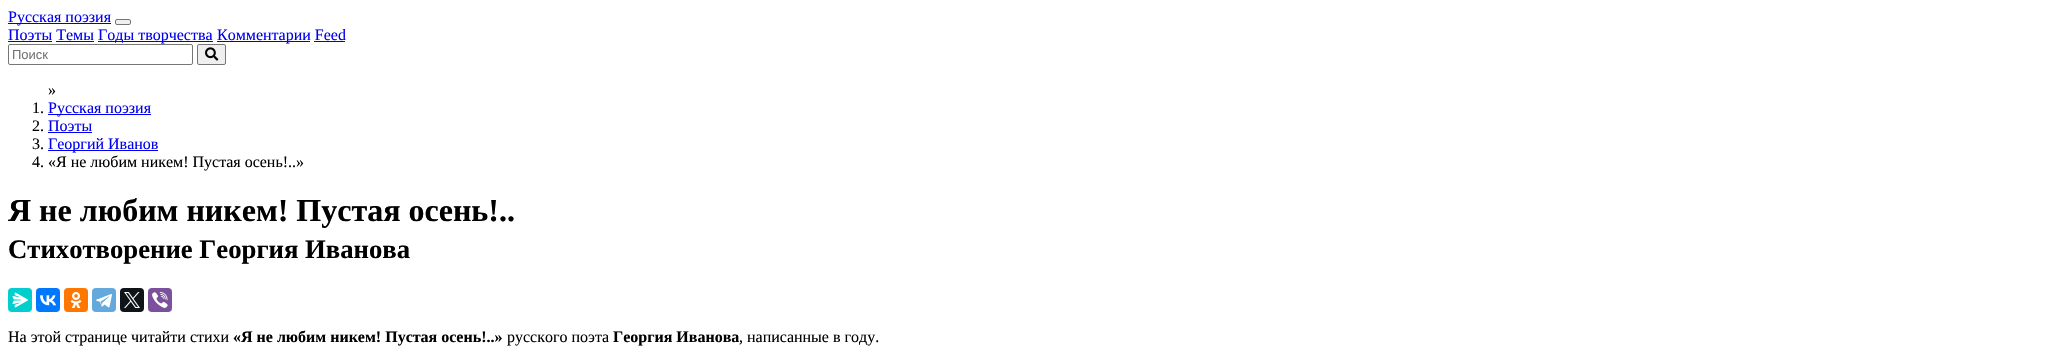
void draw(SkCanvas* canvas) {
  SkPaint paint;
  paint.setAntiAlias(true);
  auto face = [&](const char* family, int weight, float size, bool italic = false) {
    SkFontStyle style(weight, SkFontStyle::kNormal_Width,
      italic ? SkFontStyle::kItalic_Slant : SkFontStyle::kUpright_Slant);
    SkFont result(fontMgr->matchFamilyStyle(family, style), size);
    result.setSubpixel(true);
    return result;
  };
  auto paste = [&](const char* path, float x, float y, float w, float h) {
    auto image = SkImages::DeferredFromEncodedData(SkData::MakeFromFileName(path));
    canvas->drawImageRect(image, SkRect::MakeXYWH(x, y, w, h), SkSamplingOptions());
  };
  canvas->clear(0xffffffff);
  paint.setColor(0xff0000ee);
  canvas->drawRect(SkRect::MakeXYWH(8, 23, 103, 1), paint);
  paint.setColor(0xffefefef);
  canvas->drawRoundRect(SkRect::MakeXYWH(115.5f, 19.5f, 15, 5), 1.5f, 1.5f, paint);
  paint.setStroke(true);
  paint.setStrokeWidth(1);
  paint.setColor(0xff767676);
  canvas->drawRoundRect(SkRect::MakeXYWH(115.5f, 19.5f, 15, 5), 1.5f, 1.5f, paint);
  paint.setStroke(false);
  {
    const struct { float x, y, w, h; SkColor color; } items[] = {
      {8, 41, 44, 1, 0xff0000ee},
      {98, 41, 115, 1, 0xff0000ee},
      {217, 41, 93, 1, 0xff0000ee},
      {56, 41, 38, 1, 0xff0000ee},
      {314, 41, 31, 1, 0xff0000ee},
    };
    for (auto [x, y, w, h, color] : items) {
      paint.setColor(color);
      canvas->drawRect(SkRect::MakeXYWH(x, y, w, h), paint);
    }
  }
  paint.setStroke(true);
  paint.setColor(0xff767676);
  canvas->drawRoundRect(SkRect::MakeXYWH(8.5f, 44.5f, 184, 20), 1.5f, 1.5f, paint);
  paint.setStroke(false);
  paint.setColor(0xffefefef);
  canvas->drawRoundRect(SkRect::MakeXYWH(197.5f, 44.5f, 28, 20), 1.5f, 1.5f, paint);
  paint.setStroke(true);
  paint.setColor(0xff767676);
  canvas->drawRoundRect(SkRect::MakeXYWH(197.5f, 44.5f, 28, 20), 1.5f, 1.5f, paint);
  paste("img/1.png", 205, 47, 14, 14);
  paint.setStroke(false);
  {
    const struct { float x, y, w, h; SkColor color; } items[] = {
      {48, 114, 103, 1, 0xff0000ee},
      {48, 132, 44, 1, 0xff0000ee},
      {48, 150, 110, 1, 0xff0000ee},
    };
    for (auto [x, y, w, h, color] : items) {
      paint.setColor(color);
      canvas->drawRect(SkRect::MakeXYWH(x, y, w, h), paint);
    }
  }
  paint.setColor(0xff03cece);
  canvas->drawRoundRect(SkRect::MakeXYWH(8, 288, 24, 24), 4, 4, paint);
  paste("img/2.png", 12, 292, 16, 16);
  paint.setColor(0xff0077ff);
  canvas->drawRoundRect(SkRect::MakeXYWH(36, 288, 24, 24), 4, 4, paint);
  paste("img/3.png", 40, 295, 16, 11);
  paint.setColor(0xffff7700);
  canvas->drawRoundRect(SkRect::MakeXYWH(64, 288, 24, 24), 4, 4, paint);
  paste("img/4.png", 70, 292, 12, 16);
  paint.setColor(0xff64a9dc);
  canvas->drawRoundRect(SkRect::MakeXYWH(92, 288, 24, 24), 4, 4, paint);
  paste("img/5.png", 96, 294, 16, 14);
  paint.setColor(0xff0f1419);
  canvas->drawRoundRect(SkRect::MakeXYWH(120, 288, 24, 24), 4, 4, paint);
  paste("img/6.png", 124, 292, 16, 16);
  paint.setColor(0xff7b519d);
  canvas->drawRoundRect(SkRect::MakeXYWH(148, 288, 24, 24), 4, 4, paint);
  paste("img/7.png", 152, 292, 16, 16);
  auto f0 = face("Liberation Serif", 400, 16);
  paint.setColor(0xff0000ee);
  {
    const struct { const char* s; float x, y; } items[] = {
      {"Русская поэзия", 8, 22},
      {"Поэты Темы", 8, 40},
      {"Годы творчества", 98, 40},
      {"Комментарии Feed", 217, 40},
    };
    for (auto [s, x, y] : items) {
      canvas->drawString(s, x, y, f0, paint);
    }
  }
  auto f1 = face("Liberation Sans", 400, 13);
  paint.setColor(0xff757575);
  canvas->drawString("Поиск", 12, 59, f1, paint);
  paint.setColor(0xff000000);
  canvas->drawString("»", 48, 95, f0, paint);
  canvas->drawString("1.", 32, 113, f0, paint);
  paint.setColor(0xff0000ee);
  canvas->drawString("Русская поэзия", 48, 113, f0, paint);
  paint.setColor(0xff000000);
  canvas->drawString("2.", 32, 131, f0, paint);
  paint.setColor(0xff0000ee);
  canvas->drawString("Поэты", 48, 131, f0, paint);
  paint.setColor(0xff000000);
  canvas->drawString("3.", 32, 149, f0, paint);
  paint.setColor(0xff0000ee);
  canvas->drawString("Георгий Иванов", 48, 149, f0, paint);
  paint.setColor(0xff000000);
  canvas->drawString("4. «Я не любим никем! Пустая осень!..»", 32, 167, f0, paint);
  auto f2 = face("Liberation Serif", 700, 32);
  canvas->drawString("Я не любим никем! Пустая осень!..", 8, 221, f2, paint);
  auto f3 = face("Liberation Serif", 700, 26.7f);
  canvas->drawString("Стихотворение Георгия Иванова", 8, 258, f3, paint);
  canvas->drawString("На этой странице читайти стихи", 8, 342, f0, paint);
  auto f4 = face("Liberation Serif", 700, 16);
  canvas->drawString("«Я не любим никем! Пустая осень!..»", 233, 342, f4, paint);
  canvas->drawString("русского поэта", 507, 342, f0, paint);
  canvas->drawString("Георгия Иванова", 613, 342, f4, paint);
  canvas->drawString(", написанные в году.", 739, 342, f0, paint);
}
